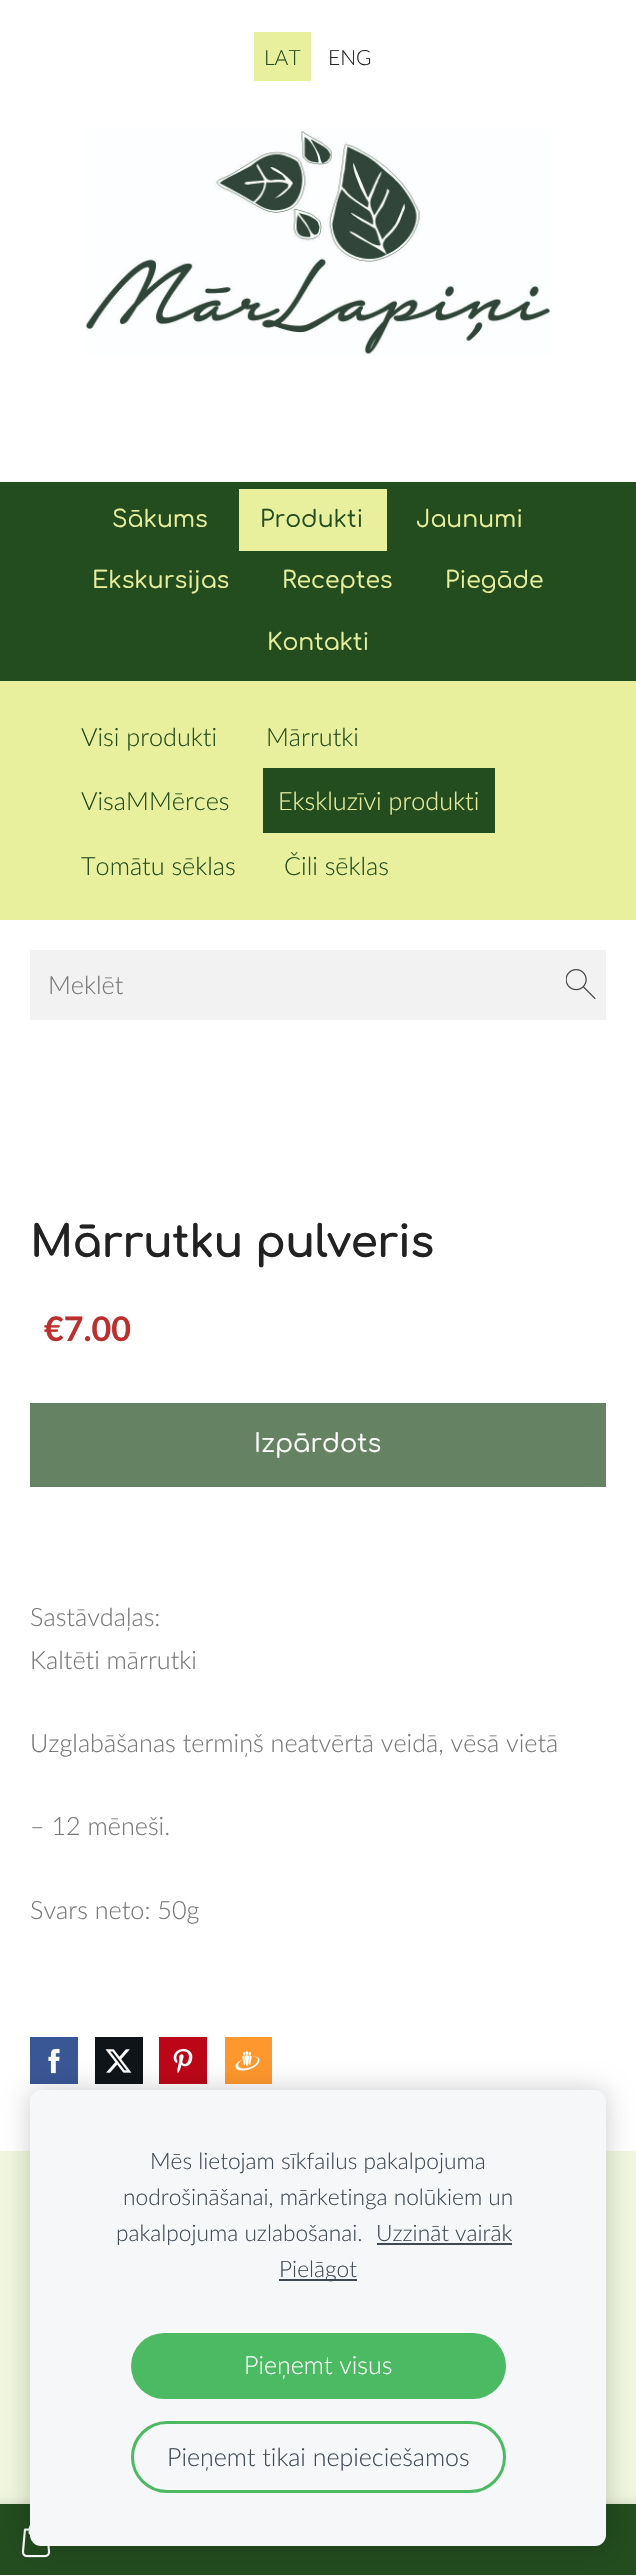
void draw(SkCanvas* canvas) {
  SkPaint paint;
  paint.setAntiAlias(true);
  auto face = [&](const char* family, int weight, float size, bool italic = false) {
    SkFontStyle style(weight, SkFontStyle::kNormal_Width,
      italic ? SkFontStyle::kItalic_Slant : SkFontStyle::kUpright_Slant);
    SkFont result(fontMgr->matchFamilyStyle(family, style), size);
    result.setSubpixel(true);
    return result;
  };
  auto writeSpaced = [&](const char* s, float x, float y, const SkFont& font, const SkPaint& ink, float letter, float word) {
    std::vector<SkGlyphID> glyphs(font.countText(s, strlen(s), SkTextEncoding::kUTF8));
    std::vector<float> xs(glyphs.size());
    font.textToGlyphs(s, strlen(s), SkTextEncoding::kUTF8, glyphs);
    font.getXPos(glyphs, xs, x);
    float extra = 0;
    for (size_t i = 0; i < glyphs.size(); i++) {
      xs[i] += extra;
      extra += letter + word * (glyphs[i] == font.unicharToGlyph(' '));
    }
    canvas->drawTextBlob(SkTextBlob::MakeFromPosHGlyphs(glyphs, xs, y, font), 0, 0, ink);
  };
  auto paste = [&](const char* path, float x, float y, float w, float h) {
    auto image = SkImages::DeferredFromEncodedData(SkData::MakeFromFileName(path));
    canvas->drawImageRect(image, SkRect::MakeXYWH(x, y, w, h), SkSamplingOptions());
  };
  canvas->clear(0xfff0f7de);
  paint.setColor(0xffffffff);
  canvas->drawRect(SkRect::MakeXYWH(0, 0, 636, 2151), paint);
  paint.setColor(0xffe9f09d);
  canvas->drawRect(SkRect::MakeXYWH(254, 32, 57, 49), paint);
  paste("img/1.png", 85, 129, 466, 227);
  {
    const struct { float x, y, w, h; SkColor color; } items[] = {
      {0, 482, 636, 199, 0xff234c1f},
      {239, 489, 148, 62, 0xffe9f09d},
      {0, 681, 636, 239, 0xffe9f09d},
      {263, 768, 232, 65, 0xff234c1f},
      {30, 950, 576, 70, 0xfff2f2f2},
    };
    for (auto [x, y, w, h, color] : items) {
      paint.setColor(color);
      canvas->drawRect(SkRect::MakeXYWH(x, y, w, h), paint);
    }
  }
  paste("img/2.png", 566, 969, 30, 30);
  paint.setColor(0xff658262);
  canvas->drawRect(SkRect::MakeXYWH(30, 1403, 576, 84), paint);
  paint.setColor(0xff3a5795);
  canvas->drawRect(SkRect::MakeXYWH(30, 2037, 48, 47), paint);
  paste("img/3.png", 48, 2048, 12, 26);
  paint.setColor(0xff0f1419);
  canvas->drawRect(SkRect::MakeXYWH(95, 2037, 48, 47), paint);
  paste("img/4.png", 105, 2049, 27, 24);
  paint.setColor(0xffbc0618);
  canvas->drawRect(SkRect::MakeXYWH(159, 2037, 48, 47), paint);
  paste("img/5.png", 173, 2048, 20, 25);
  paint.setColor(0xfffe972d);
  canvas->drawRect(SkRect::MakeXYWH(225, 2037, 47, 47), paint);
  paste("img/6.png", 235, 2051, 25, 20);
  paint.setColor(0x1a000000);
  paint.setMaskFilter(SkMaskFilter::MakeBlur(kNormal_SkBlurStyle, 4));
  canvas->drawRect(SkRect::MakeXYWH(-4, 2502, 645, 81), paint);
  paint.setMaskFilter(nullptr);
  paint.setColor(0xff234c1f);
  canvas->drawRect(SkRect::MakeXYWH(0, 2504, 636, 71), paint);
  paste("img/7.png", 21, 2525, 30, 33);
  paint.setColor(0x33000000);
  paint.setMaskFilter(SkMaskFilter::MakeBlur(kNormal_SkBlurStyle, 13));
  canvas->drawRoundRect(SkRect::MakeXYWH(30, 2090, 576, 456), 11, 11, paint);
  paint.setMaskFilter(nullptr);
  paint.setColor(0xfff6f7f9);
  canvas->drawRoundRect(SkRect::MakeXYWH(30, 2090, 576, 456), 11, 11, paint);
  paint.setColor(0xff3f4954);
  canvas->drawRect(SkRect::MakeXYWH(377, 2243, 135, 2), paint);
  canvas->drawRect(SkRect::MakeXYWH(279, 2279, 78, 2), paint);
  paint.setColor(0xff4cb963);
  canvas->drawRoundRect(SkRect::MakeXYWH(131, 2333, 375, 66), 33, 33, paint);
  paint.setStroke(true);
  paint.setStrokeWidth(3);
  canvas->drawRoundRect(SkRect::MakeXYWH(132.5f, 2422.5f, 372, 69), 34.5f, 34.5f, paint);
  auto f0 = face("Lato", 300, 21);
  paint.setStroke(false);
  paint.setColor(0xff234c1f);
  canvas->drawString("LAT", 264, 65, f0, paint);
  paint.setColor(0xff222222);
  canvas->drawString("ENG", 328, 65, f0, paint);
  auto f1 = face("Comfortaa", 400, 23.5f);
  paint.setColor(0xffe9f09d);
  canvas->drawString("Sākums", 112, 527, f1, paint);
  paint.setColor(0xff234c1f);
  canvas->drawString("Produkti", 260, 527, f1, paint);
  paint.setColor(0xffe9f09d);
  {
    const struct { const char* s; float x, y; } items[] = {
      {"Jaunumi", 416, 527},
      {"Ekskursijas", 92, 588},
      {"Receptes", 282, 588},
      {"Piegāde", 445, 588},
      {"Kontakti", 267, 650},
    };
    for (auto [s, x, y] : items) {
      canvas->drawString(s, x, y, f1, paint);
    }
  }
  auto f2 = face("Lato", 300, 25.2f);
  paint.setColor(0xff234c1f);
  {
    const struct { const char* s; float x, y; } items[] = {
      {"Visi produkti", 81, 746},
      {"Mārrutki", 266, 746},
      {"VisaMMērces", 81, 810},
    };
    for (auto [s, x, y] : items) {
      canvas->drawString(s, x, y, f2, paint);
    }
  }
  paint.setColor(0xffe9f09d);
  canvas->drawString("Ekskluzīvi produkti", 278, 810, f2, paint);
  paint.setColor(0xff234c1f);
  canvas->drawString("Tomātu sēklas", 81, 875, f2, paint);
  canvas->drawString("Čili sēklas", 284, 875, f2, paint);
  paint.setColor(0xff777777);
  canvas->drawString("Meklēt", 48, 994, f2, paint);
  auto f3 = face("Comfortaa", 700, 44);
  paint.setColor(0xff222222);
  writeSpaced("Mārrutku pulveris", 30, 1257, f3, paint, -0.7f, 0);
  auto f4 = face("Lato", 700, 34);
  paint.setColor(0xffbc2f2f);
  canvas->drawString("€7.00", 44, 1341, f4, paint);
  auto f5 = face("Comfortaa", 400, 25.5f);
  paint.setColor(0xffffffff);
  canvas->drawString("Izpārdots", 254, 1452, f5, paint);
  paint.setColor(0xff777777);
  {
    const struct { const char* s; float x, y; } items[] = {
      {"Sastāvdaļas:", 30, 1626},
      {"Kaltēti mārrutki", 30, 1669},
      {"Uzglabāšanas termiņš neatvērtā veidā, vēsā vietā", 30, 1752},
      {"– 12 mēneši.", 30, 1835},
      {"Svars neto: 50g", 30, 1919},
    };
    for (auto [s, x, y] : items) {
      canvas->drawString(s, x, y, f2, paint);
    }
  }
  auto f6 = face("Lato", 300, 22.7f);
  paint.setColor(0xff3f4954);
  {
    const struct { const char* s; float x, y; } items[] = {
      {"Mēs lietojam sīkfailus pakalpojuma", 150, 2169},
      {"nodrošināšanai, mārketinga nolūkiem un", 123, 2205},
      {"pakalpojuma uzlabošanai.", 116, 2241},
      {"Uzzināt vairāk", 376, 2241},
      {"Pielāgot", 279, 2277},
    };
    for (auto [s, x, y] : items) {
      canvas->drawString(s, x, y, f6, paint);
    }
  }
  auto f7 = face("Lato", 300, 25);
  paint.setColor(0xffffffff);
  canvas->drawString("Pieņemt visus", 244, 2374, f7, paint);
  paint.setColor(0xff3f4954);
  canvas->drawString("Pieņemt tikai nepieciešamos", 167, 2466, f7, paint);
}
